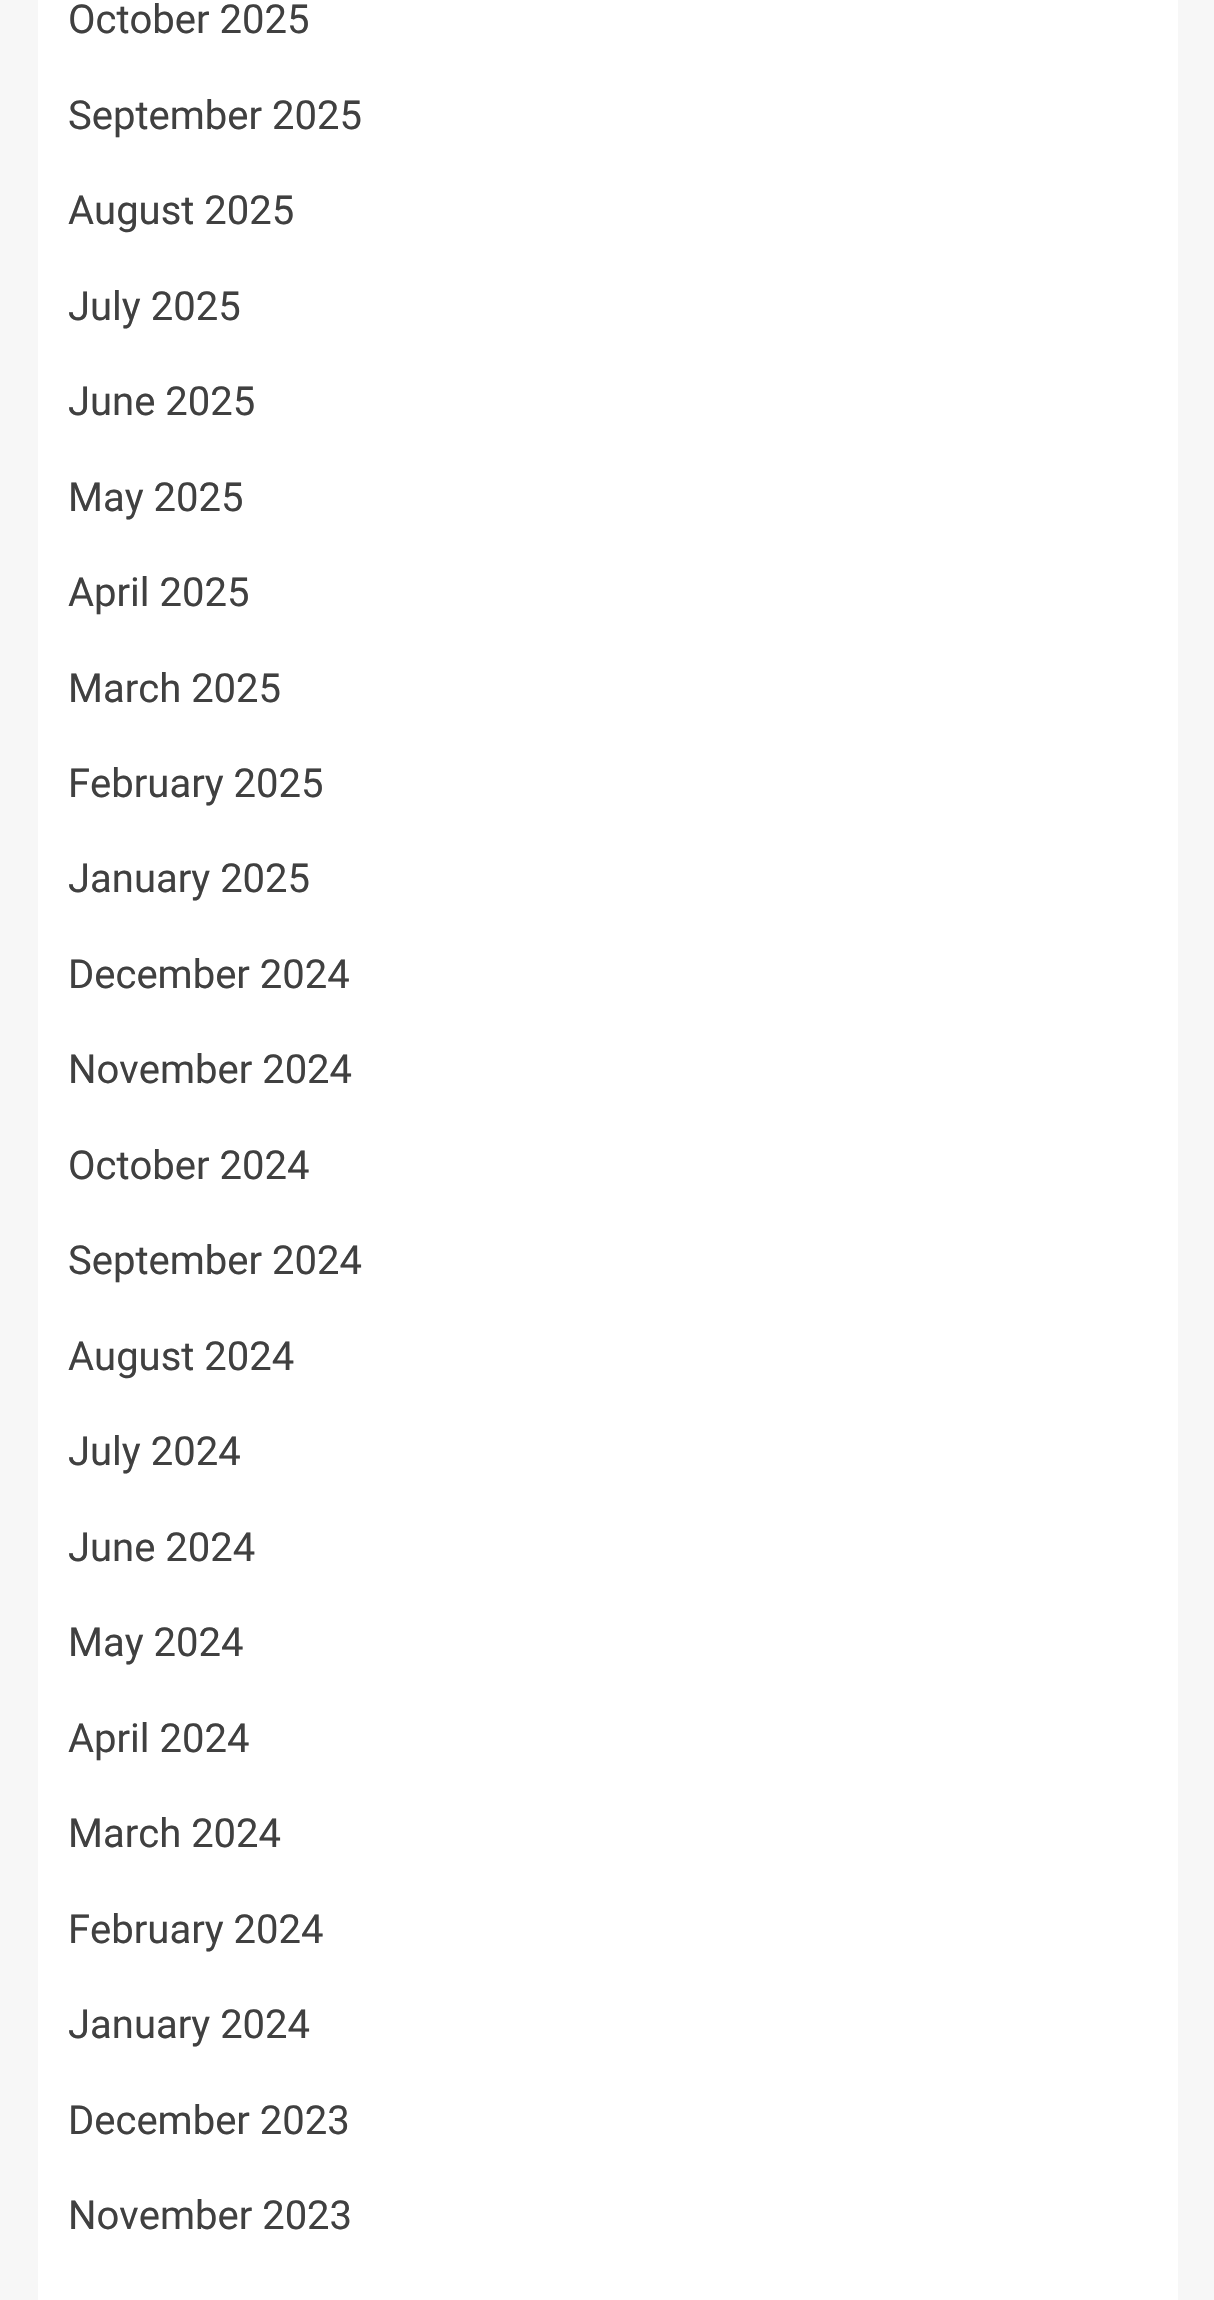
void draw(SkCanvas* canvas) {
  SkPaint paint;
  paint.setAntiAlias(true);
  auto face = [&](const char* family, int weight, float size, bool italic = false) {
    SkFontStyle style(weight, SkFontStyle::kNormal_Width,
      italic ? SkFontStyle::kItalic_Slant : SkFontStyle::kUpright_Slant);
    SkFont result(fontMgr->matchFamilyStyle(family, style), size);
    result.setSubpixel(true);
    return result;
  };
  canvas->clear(0xfff7f7f7);
  paint.setColor(0xffffffff);
  canvas->drawRect(SkRect::MakeXYWH(38, 0, 1140, 2300), paint);
  auto f0 = face("Roboto", 400, 40);
  paint.setColor(0xff404040);
  {
    const struct { const char* s; float x, y; } items[] = {
      {"October 2025", 68, 33},
      {"September 2025", 68, 129},
      {"August 2025", 68, 224},
      {"July 2025", 68, 320},
      {"June 2025", 68, 415},
      {"May 2025", 68, 511},
      {"April 2025", 68, 606},
      {"March 2025", 68, 702},
      {"February 2025", 68, 797},
      {"January 2025", 68, 892},
      {"December 2024", 68, 988},
      {"November 2024", 68, 1083},
      {"October 2024", 68, 1179},
      {"September 2024", 68, 1274},
      {"August 2024", 68, 1370},
      {"July 2024", 68, 1465},
      {"June 2024", 68, 1561},
      {"May 2024", 68, 1656},
      {"April 2024", 68, 1752},
      {"March 2024", 68, 1847},
      {"February 2024", 68, 1943},
      {"January 2024", 68, 2038},
      {"December 2023", 68, 2134},
      {"November 2023", 68, 2229},
    };
    for (auto [s, x, y] : items) {
      canvas->drawString(s, x, y, f0, paint);
    }
  }
}
